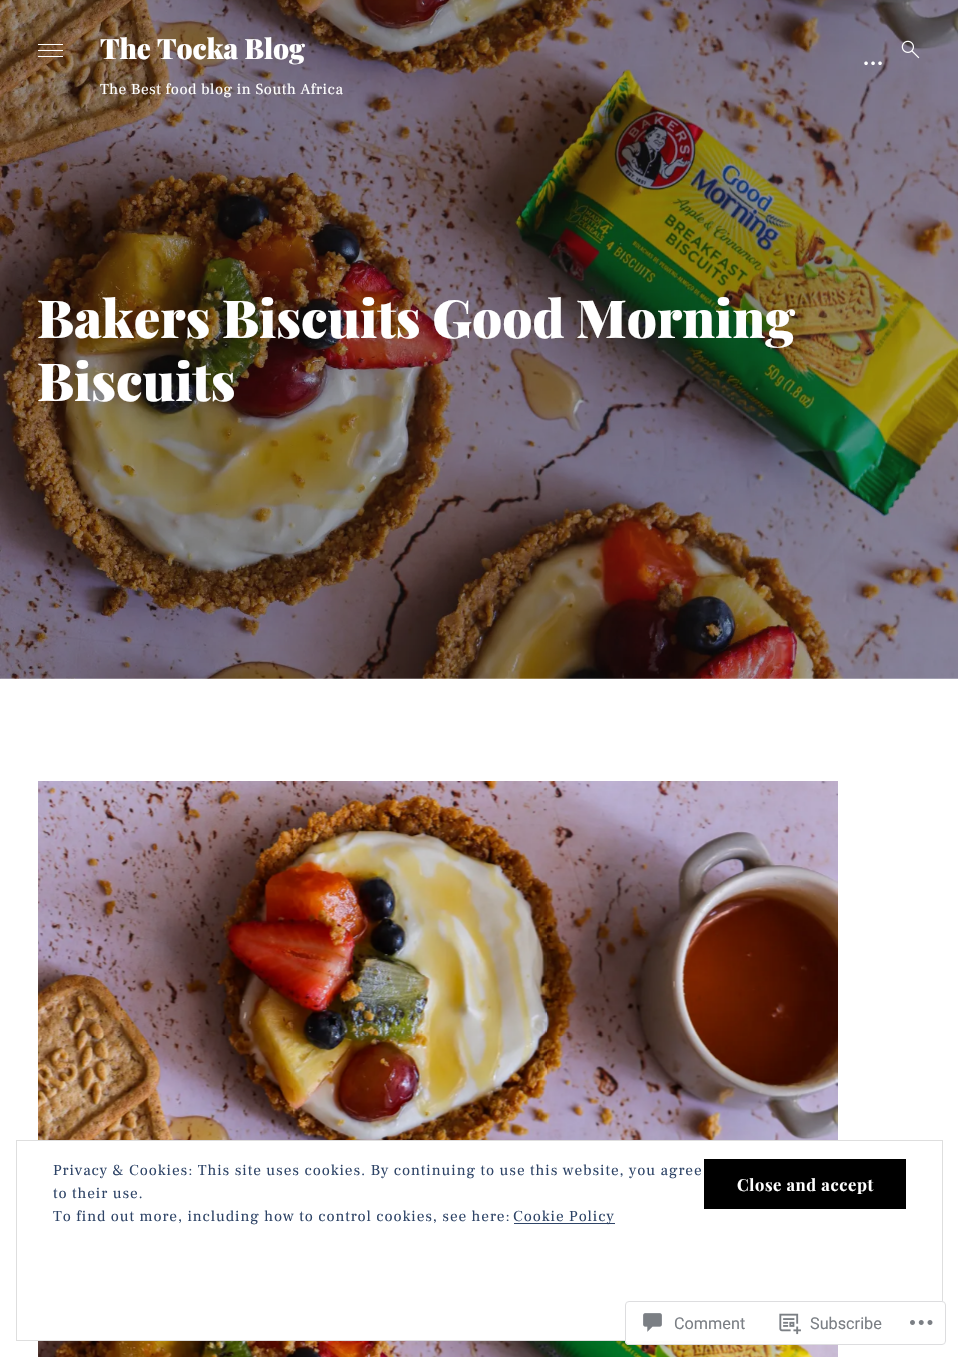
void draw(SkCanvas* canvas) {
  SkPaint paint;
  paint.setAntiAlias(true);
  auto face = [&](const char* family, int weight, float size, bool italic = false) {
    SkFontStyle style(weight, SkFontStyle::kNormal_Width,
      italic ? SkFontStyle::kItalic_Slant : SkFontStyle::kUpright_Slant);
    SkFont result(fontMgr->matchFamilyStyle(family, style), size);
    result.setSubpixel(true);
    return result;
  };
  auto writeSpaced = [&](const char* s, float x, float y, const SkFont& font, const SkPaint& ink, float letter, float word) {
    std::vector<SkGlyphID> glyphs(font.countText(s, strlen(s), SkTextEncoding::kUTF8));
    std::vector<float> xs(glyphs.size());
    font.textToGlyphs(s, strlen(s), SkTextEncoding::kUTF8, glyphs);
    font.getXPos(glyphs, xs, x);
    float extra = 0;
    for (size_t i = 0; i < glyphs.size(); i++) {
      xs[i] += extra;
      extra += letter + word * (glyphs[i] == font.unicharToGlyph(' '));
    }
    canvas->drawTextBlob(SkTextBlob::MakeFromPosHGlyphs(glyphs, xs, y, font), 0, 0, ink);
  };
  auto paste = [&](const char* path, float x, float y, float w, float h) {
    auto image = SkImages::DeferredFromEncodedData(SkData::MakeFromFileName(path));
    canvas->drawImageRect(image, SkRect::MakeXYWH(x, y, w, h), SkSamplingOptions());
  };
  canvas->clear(0xffffffff);
  paste("img/3.png", 0, 0, 958, 679);
  {
    const struct { float x, y, w, h; SkColor color; } items[] = {
      {38, 50, 25, 1, 0xffffffff},
      {38, 44, 25, 1, 0xffffffff},
      {38, 56, 25, 1, 0xffffffff},
    };
    for (auto [x, y, w, h, color] : items) {
      paint.setColor(color);
      canvas->drawRect(SkRect::MakeXYWH(x, y, w, h), paint);
    }
  }
  paste("img/1.png", 864, 61, 18, 5);
  paste("img/2.png", 901, 40, 19, 19);
  paste("img/4.png", 38, 781, 800, 576);
  canvas->drawRect(SkRect::MakeXYWH(38, 1141, 800, 199), paint);
  paint.setStroke(true);
  paint.setStrokeWidth(1);
  paint.setColor(0xffdedede);
  canvas->drawRect(SkRect::MakeXYWH(16.5f, 1140.5f, 926, 200), paint);
  paint.setStroke(false);
  paint.setColor(0xff000000);
  canvas->drawRect(SkRect::MakeXYWH(704, 1159, 202, 50), paint);
  paint.setColor(0xff2e4467);
  canvas->drawRect(SkRect::MakeXYWH(514, 1223, 101, 1), paint);
  paint.setColor(0xfaffffff);
  canvas->drawRoundRect(SkRect::MakeXYWH(625, 1301, 321, 44), 4, 4, paint);
  paint.setStroke(true);
  paint.setColor(0xfadcdcde);
  canvas->drawRoundRect(SkRect::MakeXYWH(625.5f, 1301.5f, 320, 43), 3.5f, 3.5f, paint);
  paste("img/5.png", 643, 1313, 19, 19);
  paste("img/6.png", 779, 1313, 22, 22);
  paste("img/7.png", 910, 1320, 23, 5);
  auto f0 = face("Playfair Display", 900, 28);
  paint.setStroke(false);
  paint.setColor(0xffffffff);
  writeSpaced("The Tocka Blog", 100, 59, f0, paint, -0.1f, 0);
  auto f1 = face("Frank Ruhl Libre", 400, 15.25f);
  writeSpaced("The Best food blog in South Africa", 100, 94, f1, paint, 0.5f, 0);
  auto f2 = face("Playfair Display", 900, 52.5f);
  canvas->drawString("Bakers Biscuits Good Morning", 37, 338, f2, paint);
  canvas->drawString("Biscuits", 37, 401, f2, paint);
  paint.setColor(0xff2e4467);
  writeSpaced("Privacy & Cookies: This site uses cookies. By continuing to use this website, you agree", 53, 1175, f1, paint, 0.88f, 0);
  writeSpaced("to their use.", 53, 1198, f1, paint, 0.88f, 0);
  auto f3 = face("Playfair Display", 700, 16.5f);
  paint.setColor(0xffffffff);
  writeSpaced("Close and accept", 737, 1191, f3, paint, 0.6f, 0);
  paint.setColor(0xff2e4467);
  writeSpaced("To find out more, including how to control cookies, see here:", 53, 1221, f1, paint, 0.88f, 0);
  writeSpaced("Cookie Policy", 513, 1221, f1, paint, 0.88f, 0);
  auto f4 = face("Roboto", 400, 16.25f);
  paint.setColor(0xff7b7f85);
  canvas->drawString("Comment", 674, 1329, f4, paint);
  canvas->drawString("Subscribe", 810, 1329, f4, paint);
}
